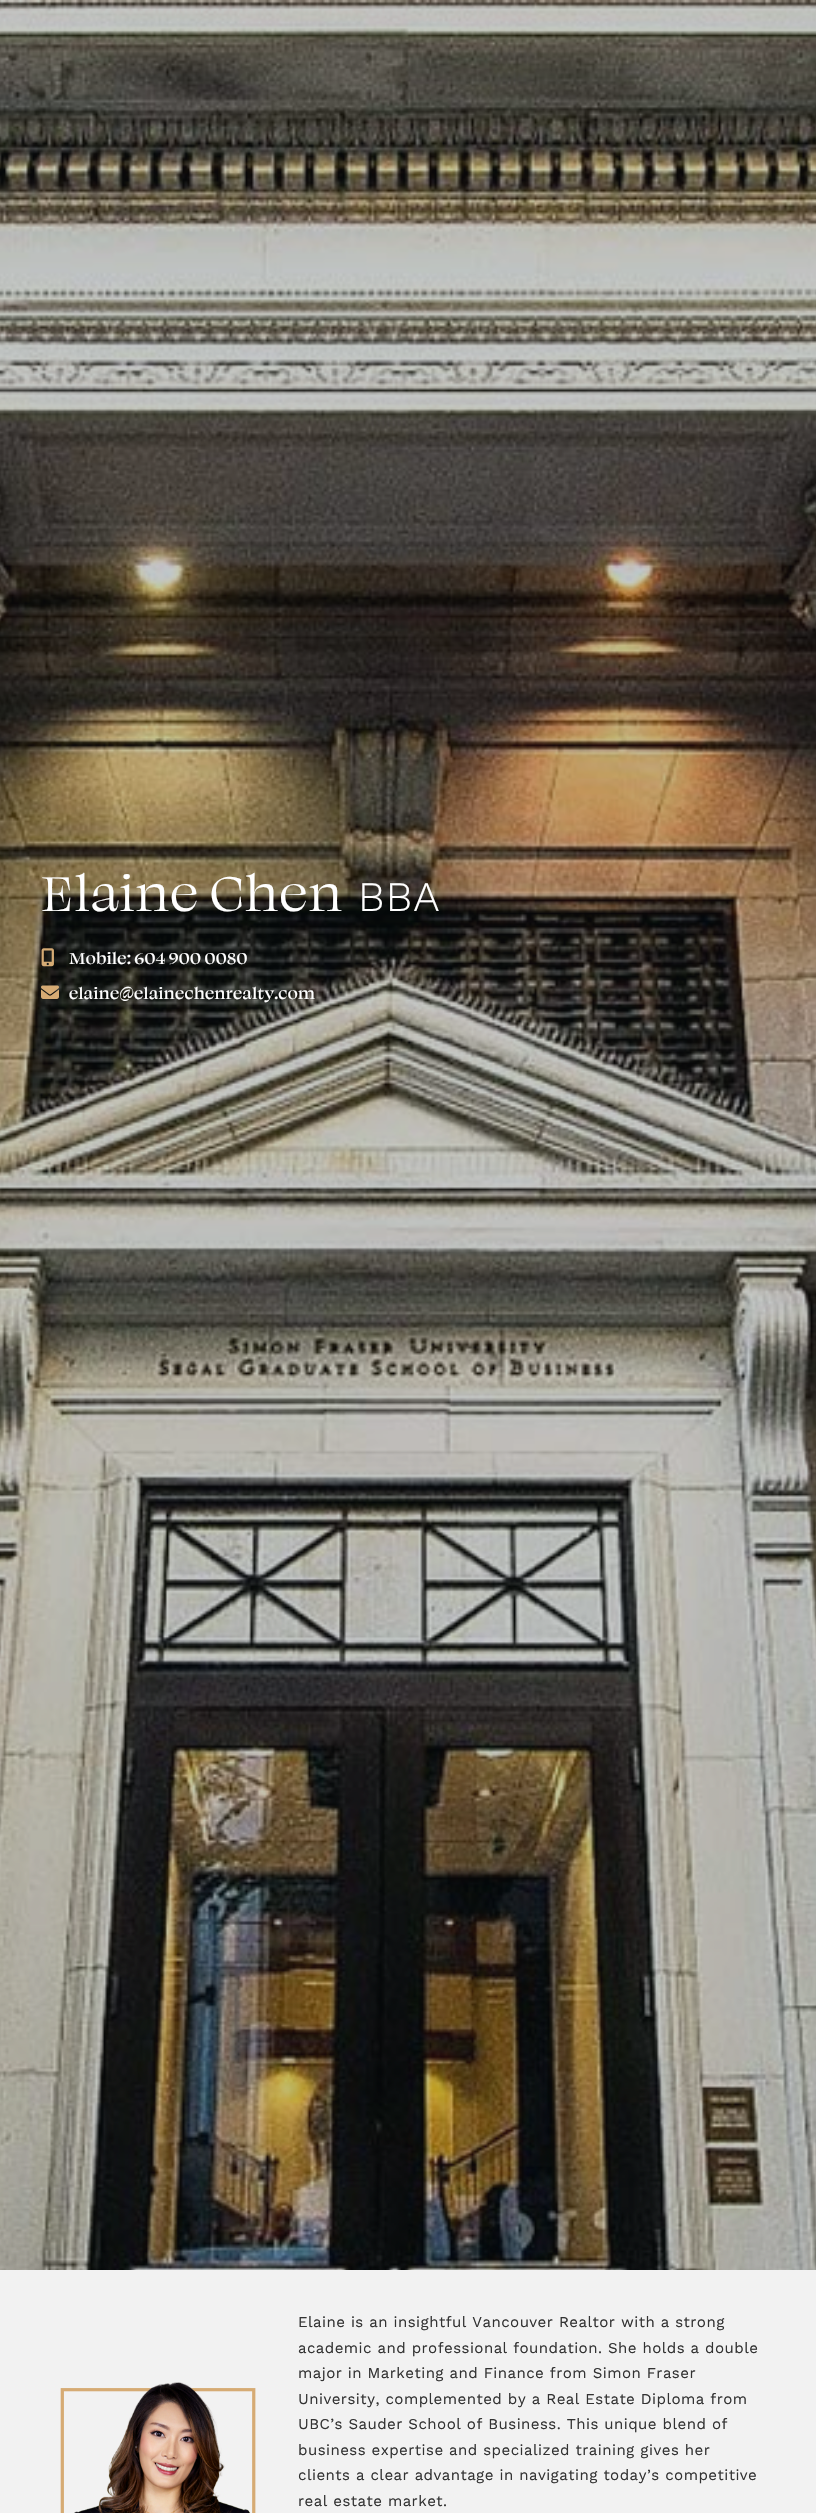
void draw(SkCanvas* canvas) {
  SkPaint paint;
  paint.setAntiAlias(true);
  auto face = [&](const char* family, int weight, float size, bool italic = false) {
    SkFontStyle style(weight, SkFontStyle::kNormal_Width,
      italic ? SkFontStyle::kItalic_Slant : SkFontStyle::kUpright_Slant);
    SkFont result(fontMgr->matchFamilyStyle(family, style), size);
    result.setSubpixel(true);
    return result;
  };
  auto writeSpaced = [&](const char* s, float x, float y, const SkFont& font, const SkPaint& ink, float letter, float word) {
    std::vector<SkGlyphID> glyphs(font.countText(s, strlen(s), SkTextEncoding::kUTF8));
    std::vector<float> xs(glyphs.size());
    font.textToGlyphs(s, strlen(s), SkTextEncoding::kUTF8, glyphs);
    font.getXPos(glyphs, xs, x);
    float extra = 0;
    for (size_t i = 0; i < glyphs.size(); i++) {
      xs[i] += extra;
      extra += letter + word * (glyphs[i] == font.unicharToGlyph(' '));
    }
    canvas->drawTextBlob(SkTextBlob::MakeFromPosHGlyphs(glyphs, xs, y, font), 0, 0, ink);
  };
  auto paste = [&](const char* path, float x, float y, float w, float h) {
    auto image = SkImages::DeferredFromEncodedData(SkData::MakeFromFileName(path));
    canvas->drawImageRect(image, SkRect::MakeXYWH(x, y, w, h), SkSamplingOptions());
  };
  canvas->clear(0xffffffff);
  paste("img/1.png", 0, 0, 816, 2270);
  paste("img/2.png", 41, 948, 13, 19);
  paste("img/3.png", 41, 985, 18, 14);
  paint.setColor(0xfff2f2f2);
  canvas->drawRect(SkRect::MakeXYWH(0, 2270, 816, 243), paint);
  paste("img/4.png", 60, 2382, 196, 131);
  auto f0 = face("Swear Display", 400, 56);
  paint.setColor(0xffffffff);
  writeSpaced("Elaine Chen", 41, 911, f0, paint, 1.1f, 0);
  auto f1 = face("Work Sans", 300, 42);
  writeSpaced("BBA", 358, 911, f1, paint, 1.1f, 0);
  auto f2 = face("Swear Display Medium", 500, 18);
  writeSpaced("Mobile: 604 900 0080", 69, 964, f2, paint, 0.35f, 0);
  writeSpaced("elaine@elainechenrealty.com", 69, 999, f2, paint, 0.35f, 0);
  auto f3 = face("Work Sans", 400, 15);
  paint.setColor(0xff333333);
  {
    const struct { const char* s; float x, y; } items[] = {
      {"Elaine is an insightful Vancouver Realtor with a strong", 298, 2327},
      {"academic and professional foundation. She holds a double", 298, 2353},
      {"major in Marketing and Finance from Simon Fraser", 298, 2378},
      {"University, complemented by a Real Estate Diploma from", 298, 2404},
      {"UBC’s Sauder School of Business. This unique blend of", 298, 2429},
      {"business expertise and specialized training gives her", 298, 2455},
      {"clients a clear advantage in navigating today’s competitive", 298, 2480},
      {"real estate market.", 298, 2506},
    };
    for (auto [s, x, y] : items) {
      writeSpaced(s, x, y, f3, paint, 0.45f, 0);
    }
  }
}
